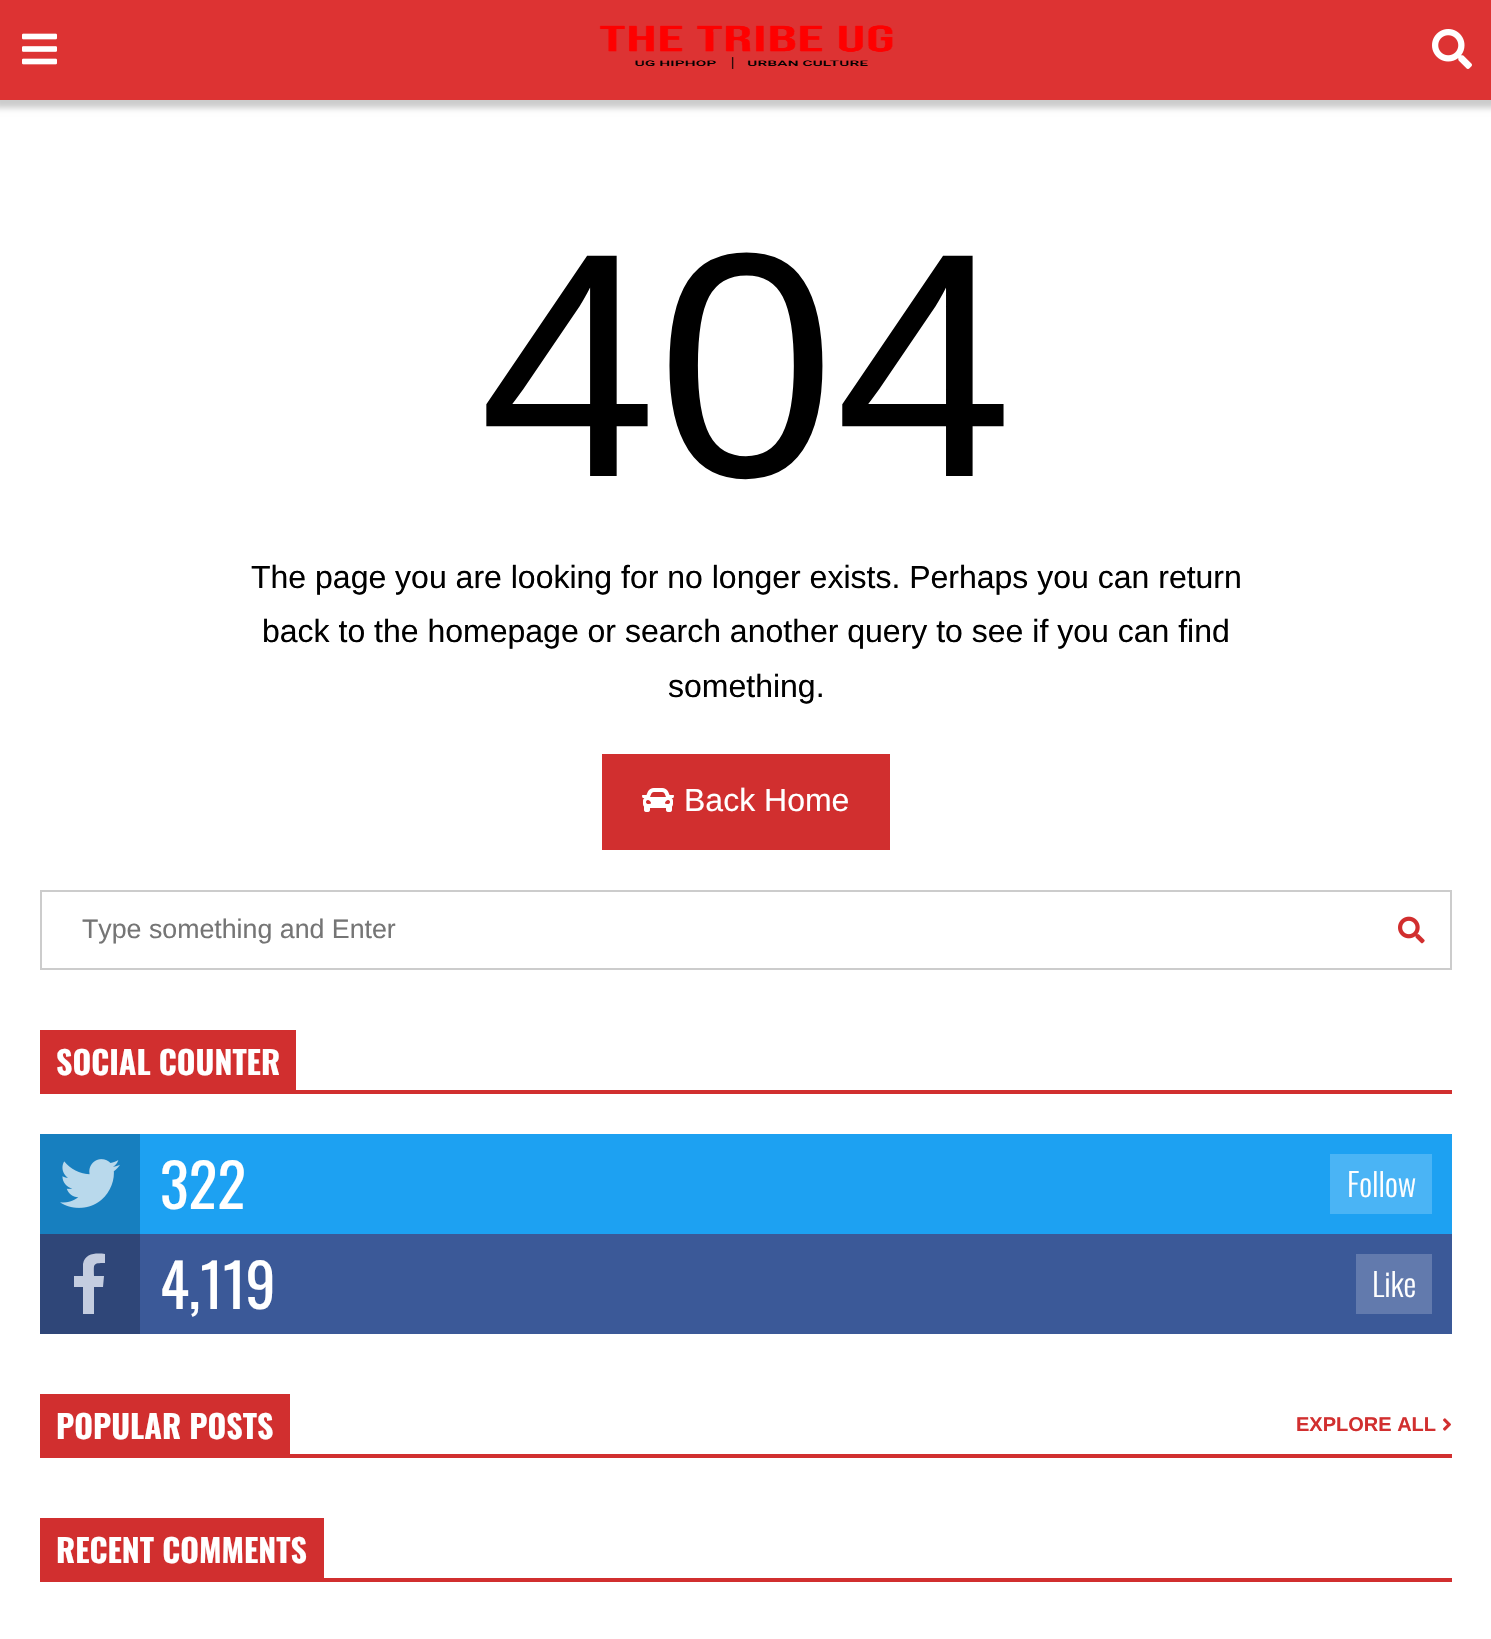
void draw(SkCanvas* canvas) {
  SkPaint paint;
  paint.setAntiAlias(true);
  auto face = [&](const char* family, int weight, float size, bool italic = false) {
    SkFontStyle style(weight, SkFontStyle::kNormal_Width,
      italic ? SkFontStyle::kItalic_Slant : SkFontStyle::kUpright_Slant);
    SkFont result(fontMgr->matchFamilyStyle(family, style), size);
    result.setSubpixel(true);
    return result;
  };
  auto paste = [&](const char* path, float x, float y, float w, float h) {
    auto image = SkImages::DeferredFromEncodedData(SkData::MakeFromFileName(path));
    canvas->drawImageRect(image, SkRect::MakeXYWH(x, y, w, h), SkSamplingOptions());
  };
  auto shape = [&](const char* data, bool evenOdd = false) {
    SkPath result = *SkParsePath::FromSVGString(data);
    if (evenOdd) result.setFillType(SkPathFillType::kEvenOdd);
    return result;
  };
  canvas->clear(0xffffffff);
  paint.setColor(0x33000000);
  paint.setMaskFilter(SkMaskFilter::MakeBlur(kNormal_SkBlurStyle, 3));
  canvas->drawRect(SkRect::MakeXYWH(-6, -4, 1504, 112), paint);
  paint.setMaskFilter(nullptr);
  paint.setColor(0xffdd3333);
  canvas->drawRect(SkRect::MakeXYWH(0, 0, 1491, 100), paint);
  paste("img/1.png", 22, 33, 35, 32);
  paste("img/2.png", 599, 25, 294, 44);
  paste("img/3.png", 1432, 29, 40, 40);
  paint.setColor(0xffd12f2f);
  canvas->drawRect(SkRect::MakeXYWH(602, 754, 288, 96), paint);
  paste("img/4.png", 642, 788, 32, 24);
  paint.setStroke(true);
  paint.setStrokeWidth(2);
  paint.setColor(0xffcccccc);
  canvas->drawRect(SkRect::MakeXYWH(41, 891, 1410, 78), paint);
  paste("img/5.png", 1398, 916, 27, 28);
  paint.setStroke(false);
  {
    const struct { float x, y, w, h; SkColor color; } items[] = {
      {296, 1090, 1156, 4, 0xffd12f2f},
      {40, 1030, 256, 64, 0xffd12f2f},
      {140, 1134, 1312, 100, 0xff1da1f2},
      {40, 1134, 100, 100, 0xff177fbf},
    };
    for (auto [x, y, w, h, color] : items) {
      paint.setColor(color);
      canvas->drawRect(SkRect::MakeXYWH(x, y, w, h), paint);
    }
  }
  paste("img/6.png", 60, 1159, 60, 49);
  {
    const struct { float x, y, w, h; SkColor color; } items[] = {
      {1330, 1154, 102, 60, 0xff4ab4f5},
      {140, 1234, 1312, 100, 0xff3b5998},
      {40, 1234, 100, 100, 0xff2f4678},
    };
    for (auto [x, y, w, h, color] : items) {
      paint.setColor(color);
      canvas->drawRect(SkRect::MakeXYWH(x, y, w, h), paint);
    }
  }
  paint.setColor(0xffc4cde0);
  canvas->drawPath(shape("M83 1314V1287H74V1276H83V1264C85 1253 96 1253 105 1254V1263C92 1263 94 1264 94 1276H104L103 1287H94V1314Z"), paint);
  {
    const struct { float x, y, w, h; SkColor color; } items[] = {
      {1356, 1254, 76, 60, 0xff627aad},
      {290, 1454, 1162, 4, 0xffd12f2f},
      {40, 1394, 250, 64, 0xffd12f2f},
    };
    for (auto [x, y, w, h, color] : items) {
      paint.setColor(color);
      canvas->drawRect(SkRect::MakeXYWH(x, y, w, h), paint);
    }
  }
  paste("img/7.png", 1443, 1418, 8, 13);
  canvas->drawRect(SkRect::MakeXYWH(324, 1578, 1128, 4), paint);
  canvas->drawRect(SkRect::MakeXYWH(40, 1518, 284, 64), paint);
  auto f0 = face("Liberation Sans", 400, 320);
  paint.setColor(0xff000000);
  canvas->drawString("404", 479, 476, f0, paint);
  auto f1 = face("Liberation Sans", 400, 32);
  {
    const struct { const char* s; float x, y; } items[] = {
      {"The page you are looking for no longer exists. Perhaps you can return", 251, 588},
      {"back to the homepage or search another query to see if you can find", 262, 642},
      {"something.", 668, 697},
    };
    for (auto [s, x, y] : items) {
      canvas->drawString(s, x, y, f1, paint);
    }
  }
  paint.setColor(0xffffffff);
  canvas->drawString("Back Home", 684, 811, f1, paint);
  auto f2 = face("Liberation Sans", 400, 26.75f);
  paint.setColor(0xff757575);
  canvas->drawString("Type something and Enter", 82, 938, f2, paint);
  auto f3 = face("Oswald", 700, 32);
  paint.setColor(0xffffffff);
  canvas->drawString("SOCIAL COUNTER", 56, 1075, f3, paint);
  auto f4 = face("Oswald", 400, 60);
  canvas->drawString("322", 160, 1209, f4, paint);
  auto f5 = face("Oswald", 300, 32);
  canvas->drawString("Follow", 1347, 1197, f5, paint);
  canvas->drawString("4,119", 160, 1309, f4, paint);
  canvas->drawString("Like", 1372, 1297, f5, paint);
  canvas->drawString("POPULAR POSTS", 56, 1439, f3, paint);
  auto f6 = face("Liberation Sans", 700, 20);
  paint.setColor(0xffd12f2f);
  canvas->drawString("EXPLORE ALL", 1296, 1431, f6, paint);
  paint.setColor(0xffffffff);
  canvas->drawString("RECENT COMMENTS", 56, 1563, f3, paint);
}
